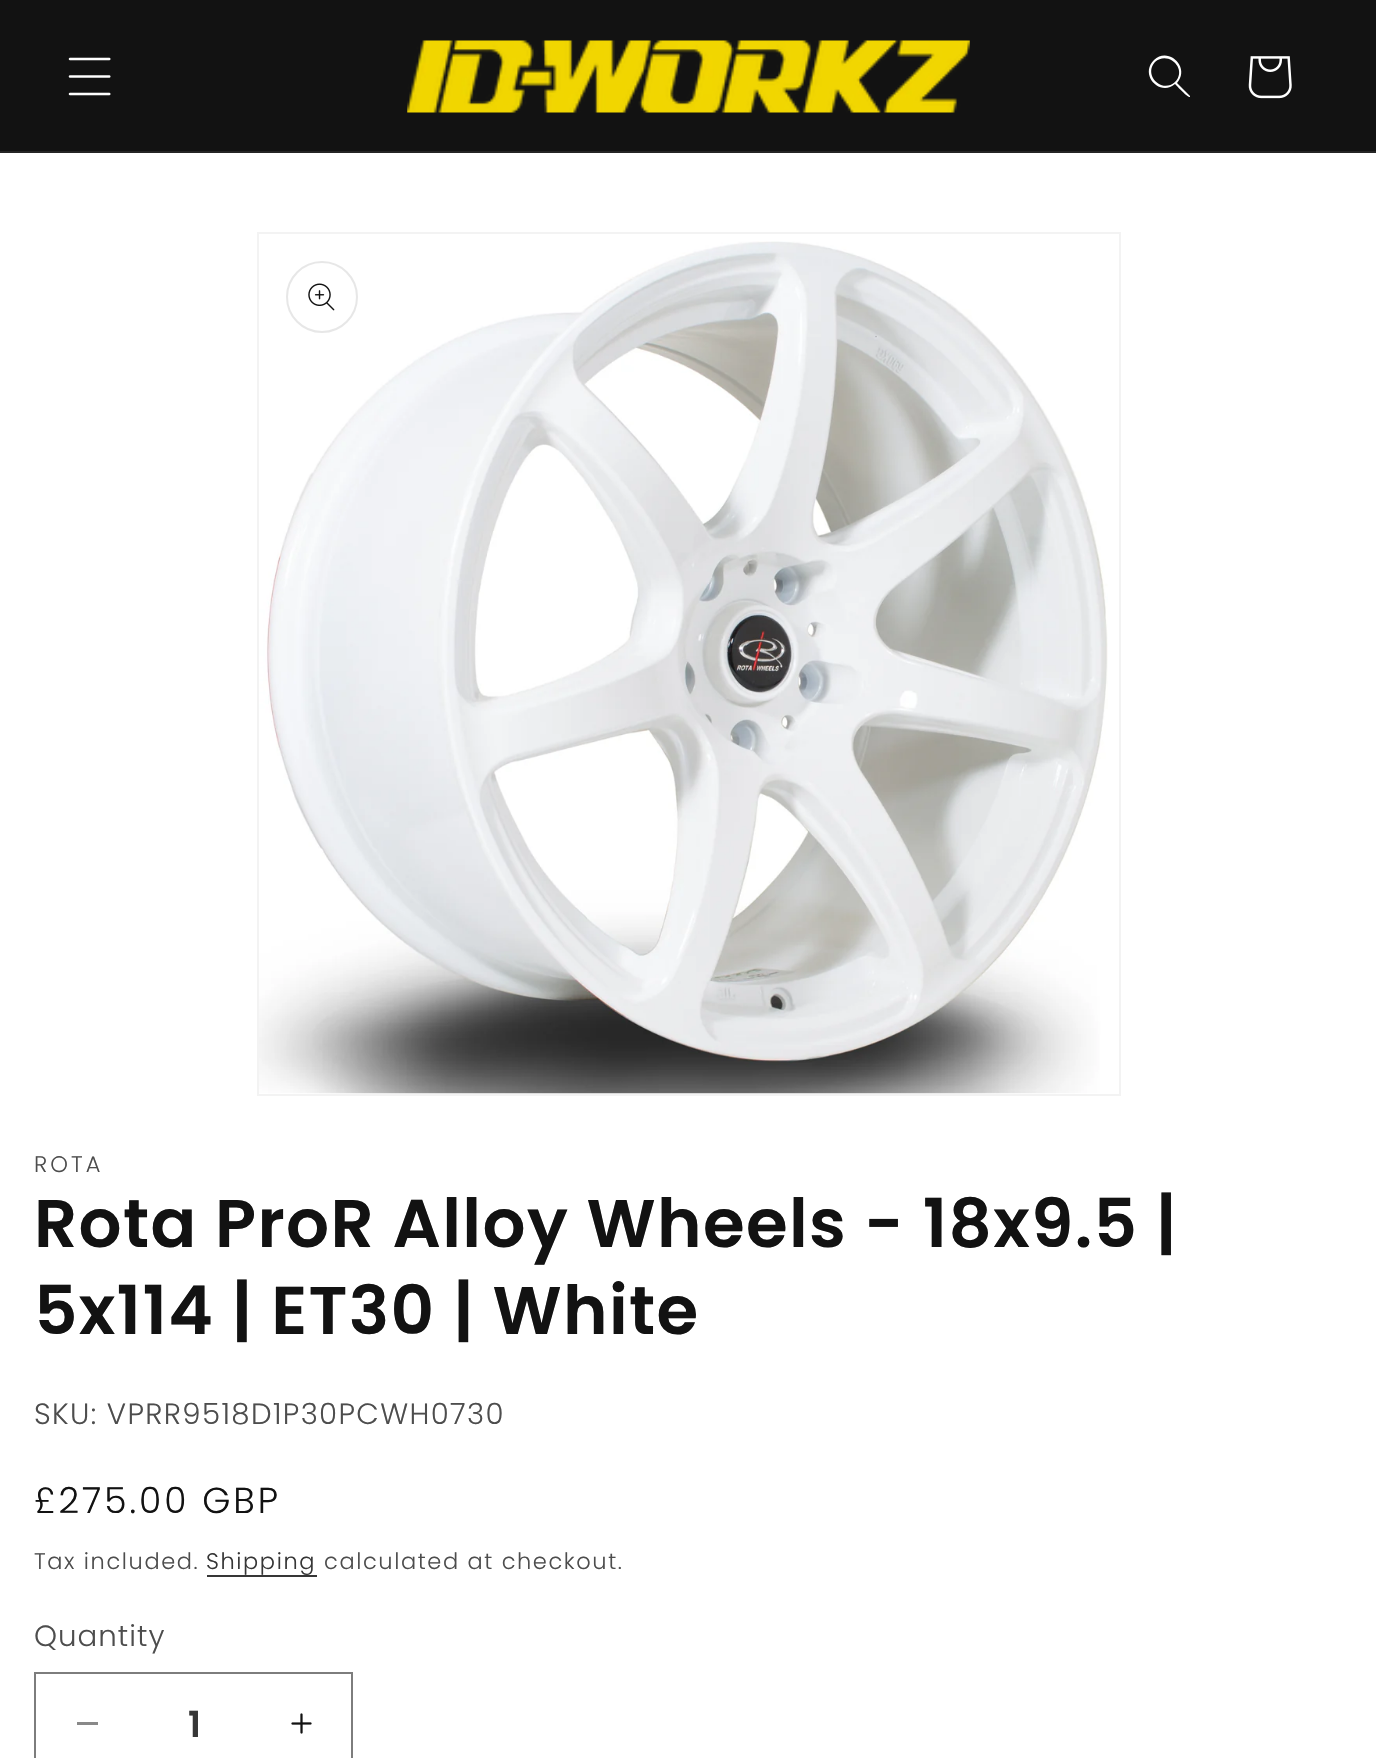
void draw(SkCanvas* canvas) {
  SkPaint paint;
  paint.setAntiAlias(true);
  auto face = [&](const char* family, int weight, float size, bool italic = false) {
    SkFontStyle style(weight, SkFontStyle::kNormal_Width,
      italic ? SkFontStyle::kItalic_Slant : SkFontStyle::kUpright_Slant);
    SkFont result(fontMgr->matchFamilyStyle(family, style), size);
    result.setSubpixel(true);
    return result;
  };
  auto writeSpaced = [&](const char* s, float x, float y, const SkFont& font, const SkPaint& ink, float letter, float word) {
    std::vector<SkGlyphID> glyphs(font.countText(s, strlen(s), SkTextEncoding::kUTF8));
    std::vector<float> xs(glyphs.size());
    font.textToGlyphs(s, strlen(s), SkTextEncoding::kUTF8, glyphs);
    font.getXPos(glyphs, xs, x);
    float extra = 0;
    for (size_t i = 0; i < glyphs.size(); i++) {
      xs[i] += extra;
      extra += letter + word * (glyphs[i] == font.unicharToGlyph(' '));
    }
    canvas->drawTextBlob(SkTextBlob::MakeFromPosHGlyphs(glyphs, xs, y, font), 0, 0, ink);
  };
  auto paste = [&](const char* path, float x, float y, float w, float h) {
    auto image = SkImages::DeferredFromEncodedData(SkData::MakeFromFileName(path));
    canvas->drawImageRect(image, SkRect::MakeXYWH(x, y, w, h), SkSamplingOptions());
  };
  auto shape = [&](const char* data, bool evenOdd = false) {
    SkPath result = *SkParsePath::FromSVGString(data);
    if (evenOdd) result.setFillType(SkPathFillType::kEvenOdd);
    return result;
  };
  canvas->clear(0xffffffff);
  paint.setColor(0xff121212);
  canvas->drawRect(SkRect::MakeXYWH(0, 0, 1376, 151), paint);
  paint.setColor(0xff252525);
  canvas->drawRect(SkRect::MakeXYWH(0, 151, 1376, 2), paint);
  paste("img/1.png", 68, 57, 43, 39);
  paste("img/2.png", 407, 40, 563, 73);
  paint.setColor(0xffffffff);
  canvas->drawPath(shape("M1175 82C1162 94 1143 75 1155 62C1168 50 1188 69 1175 82ZM1175 84C1160 97 1139 75 1154 60C1168 46 1191 67 1177 83L1190 96V97C1188 98 1177 86 1175 84Z", true), paint);
  paste("img/3.png", 1248, 56, 44, 43);
  paint.setStroke(true);
  paint.setStrokeWidth(2);
  paint.setColor(0xfff3f3f3);
  canvas->drawRect(SkRect::MakeXYWH(258, 233, 862, 862), paint);
  paste("img/4.png", 259, 241, 849, 853);
  paint.setColor(0xffe7e7e7);
  canvas->drawCircle(322, 297, 35, paint);
  paste("img/5.png", 308, 283, 27, 28);
  paint.setStroke(false);
  paint.setColor(0xff363636);
  canvas->drawRect(SkRect::MakeXYWH(207, 1575, 110, 2), paint);
  paint.setColor(0xff898989);
  canvas->drawRect(SkRect::MakeXYWH(77, 1722, 21, 3), paint);
  paste("img/6.png", 291, 1713, 21, 21);
  paint.setStroke(true);
  paint.setColor(0xff7d7d7d);
  canvas->drawRect(SkRect::MakeXYWH(35, 1673, 317, 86), paint);
  auto f0 = face("Poppins", 300, 22.5f);
  paint.setStroke(false);
  paint.setColor(0xff4d4d4d);
  writeSpaced("ROTA", 34, 1172, f0, paint, 3, 0);
  auto f1 = face("Poppins", 600, 67.5f);
  paint.setColor(0xff121212);
  writeSpaced("Rota ProR Alloy Wheels - 18x9.5 |", 34, 1247, f1, paint, 1.35f, 0);
  writeSpaced("5x114 | ET30 | White", 34, 1334, f1, paint, 1.35f, 0);
  auto f2 = face("Poppins", 300, 29.25f);
  paint.setColor(0xff4d4d4d);
  writeSpaced("SKU: VPRR9518D1P30PCWH0730", 34, 1424, f2, paint, 1.35f, 0);
  auto f3 = face("Poppins", 300, 36);
  paint.setColor(0xff121212);
  writeSpaced("£275.00 GBP", 34, 1513, f3, paint, 3, 0);
  paint.setColor(0xff4d4d4d);
  writeSpaced("Tax included.", 34, 1569, f0, paint, 1.6f, 0);
  paint.setColor(0xff363636);
  writeSpaced("Shipping", 206, 1569, f0, paint, 1.6f, 0);
  paint.setColor(0xff4d4d4d);
  writeSpaced("calculated at checkout.", 324, 1569, f0, paint, 1.6f, 0);
  writeSpaced("Quantity", 34, 1646, f2, paint, 1, 0);
  auto f4 = face("Poppins", 600, 36);
  paint.setColor(0xff363636);
  canvas->drawString("1", 188, 1737, f4, paint);
}
